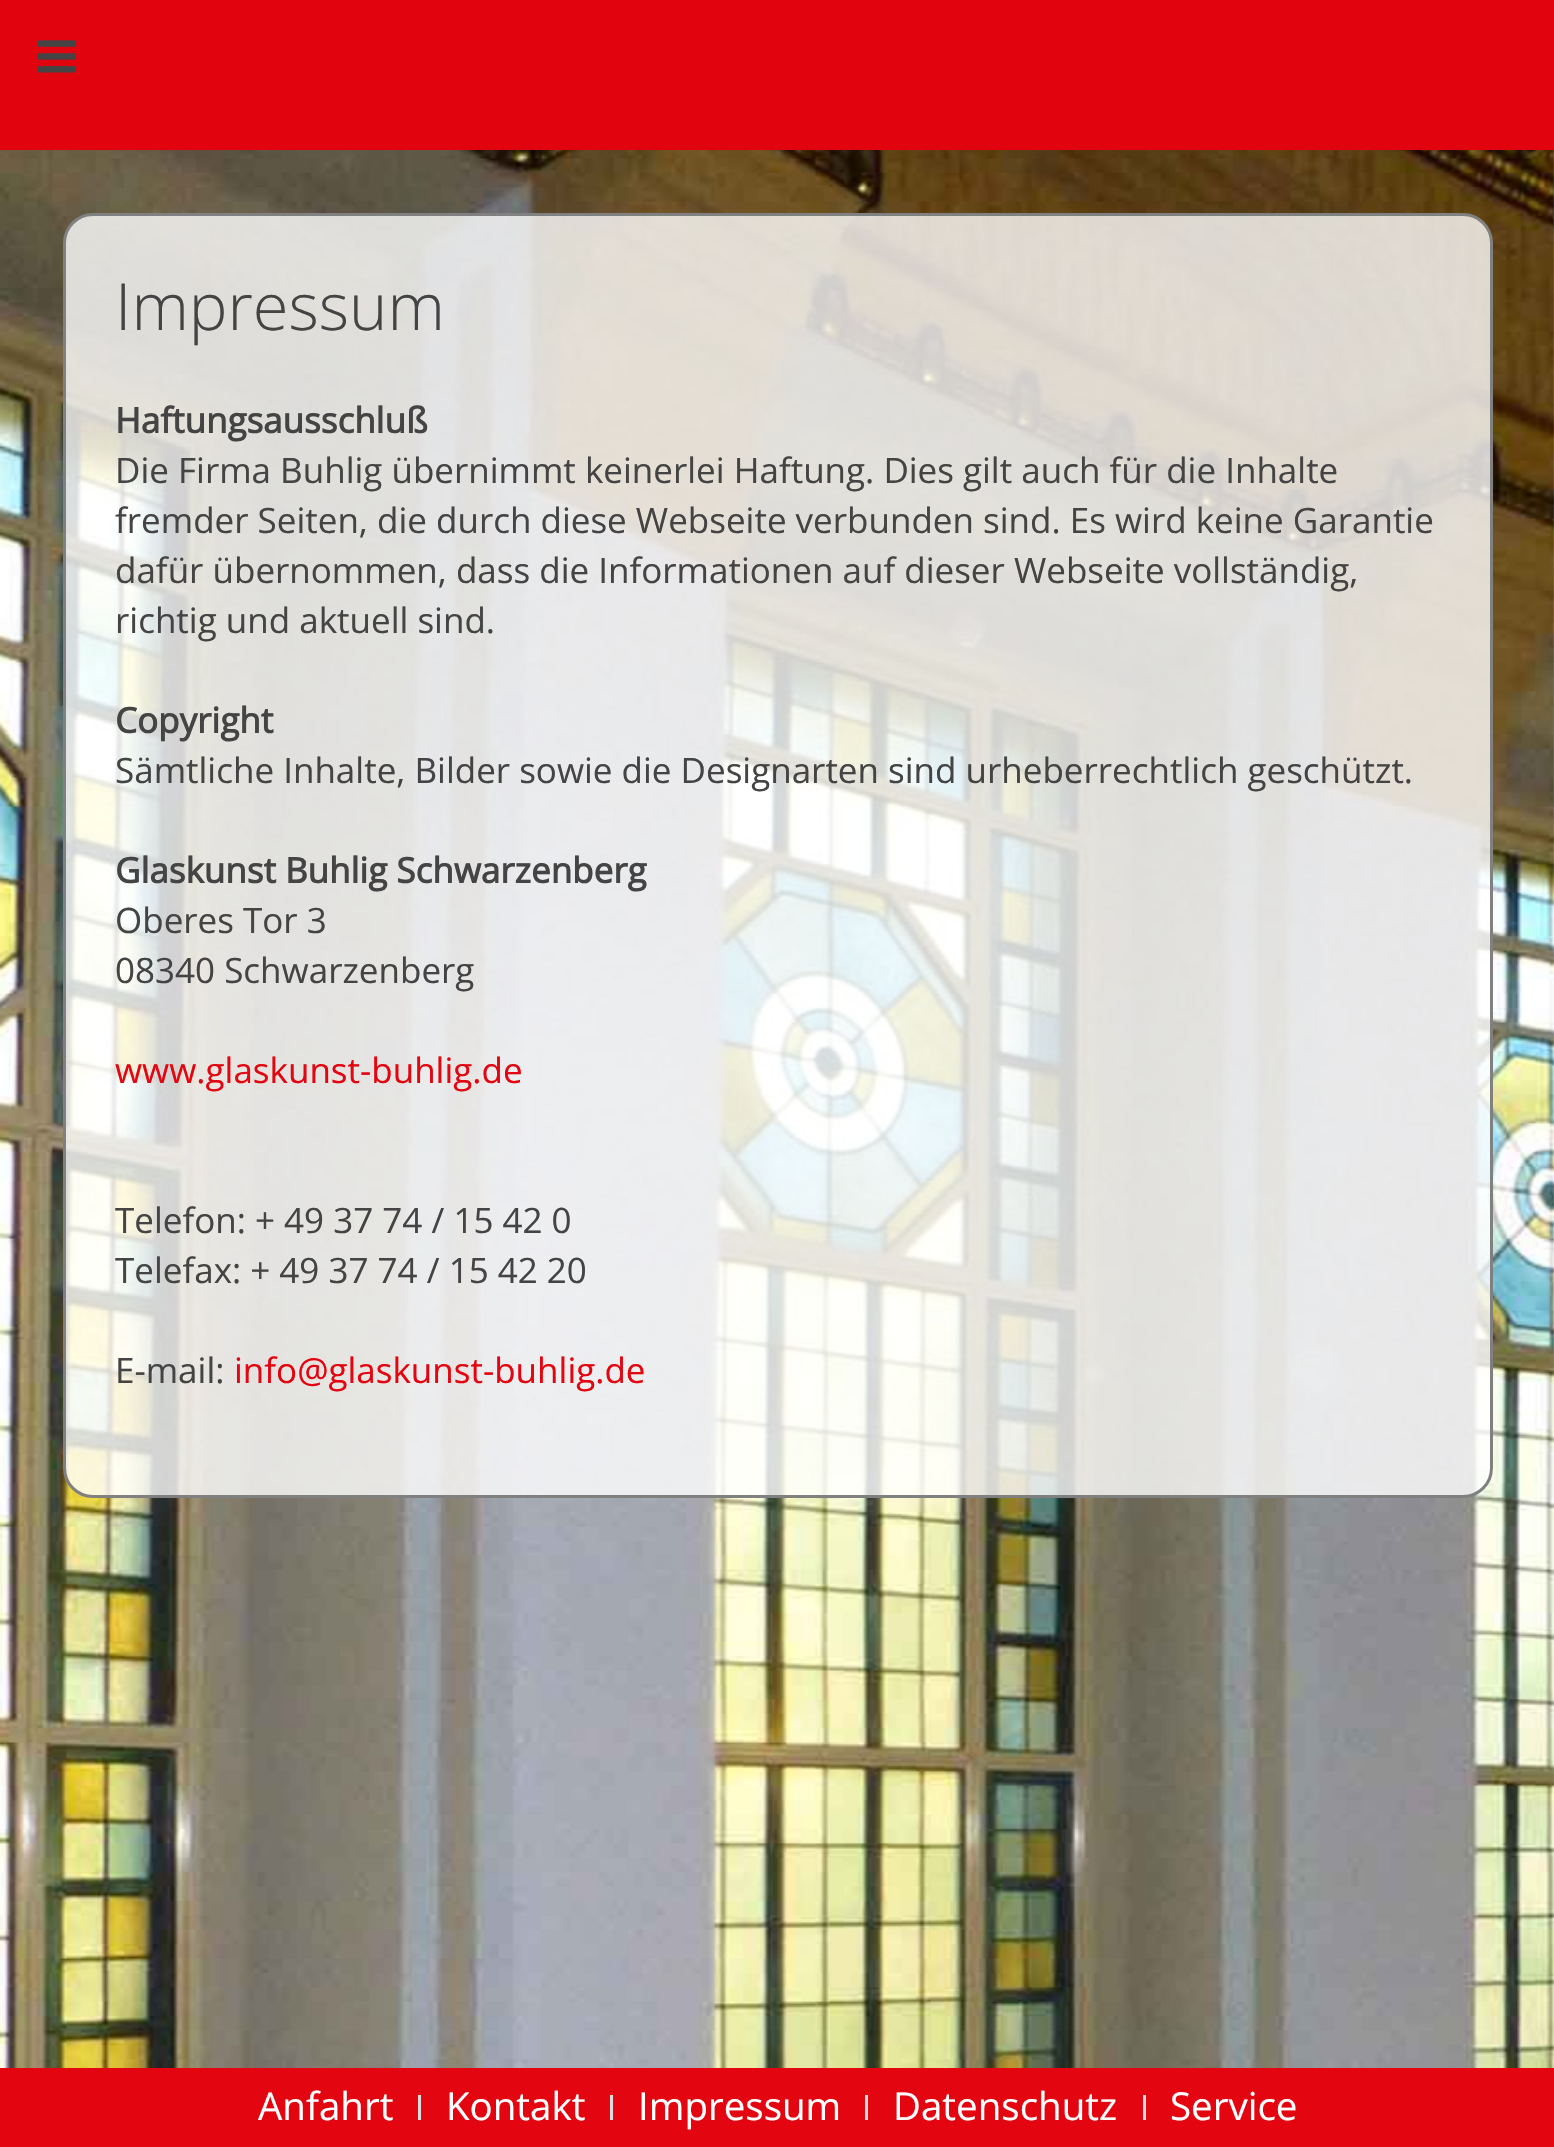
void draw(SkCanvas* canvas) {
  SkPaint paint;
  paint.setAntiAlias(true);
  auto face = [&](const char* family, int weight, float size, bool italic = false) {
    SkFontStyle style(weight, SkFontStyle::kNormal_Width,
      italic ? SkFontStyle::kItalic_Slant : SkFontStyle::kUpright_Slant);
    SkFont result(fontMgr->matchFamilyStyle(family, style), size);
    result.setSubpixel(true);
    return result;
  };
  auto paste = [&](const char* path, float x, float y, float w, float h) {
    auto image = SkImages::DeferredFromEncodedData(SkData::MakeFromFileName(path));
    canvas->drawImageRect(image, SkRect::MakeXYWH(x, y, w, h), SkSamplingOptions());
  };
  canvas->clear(0xffffffff);
  paste("img/1.png", 0, 150, 1554, 1918);
  paint.setColor(0xffe1030e);
  canvas->drawRect(SkRect::MakeXYWH(0, 0, 1554, 150), paint);
  paste("img/2.png", 37, 40, 40, 33);
  paint.setColor(0xccffffff);
  canvas->drawRoundRect(SkRect::MakeXYWH(64.5f, 214.5f, 1427, 1282), 28.5f, 28.5f, paint);
  paint.setStroke(true);
  paint.setStrokeWidth(3);
  paint.setColor(0xff808080);
  canvas->drawRoundRect(SkRect::MakeXYWH(64.5f, 214.5f, 1427, 1282), 28.5f, 28.5f, paint);
  paint.setStroke(false);
  {
    const struct { float x, y, w, h; SkColor color; } items[] = {
      {0, 2068, 1554, 79, 0xffe3050f},
      {418, 2095, 3, 25, 0xffdddddd},
      {610, 2095, 3, 25, 0xffdddddd},
      {865, 2095, 3, 25, 0xffdddddd},
      {1143, 2095, 3, 25, 0xffdddddd},
    };
    for (auto [x, y, w, h, color] : items) {
      paint.setColor(color);
      canvas->drawRect(SkRect::MakeXYWH(x, y, w, h), paint);
    }
  }
  auto f0 = face("Open Sans", 300, 65);
  paint.setColor(0xff444444);
  canvas->drawString("Impressum", 115, 330, f0, paint);
  auto f1 = face("Open Sans", 700, 35);
  canvas->drawString("Haftungsausschluß", 115, 433, f1, paint);
  auto f2 = face("Open Sans", 400, 35);
  {
    const struct { const char* s; float x, y; } items[] = {
      {"Die Firma Buhlig übernimmt keinerlei Haftung. Dies gilt auch für die Inhalte", 115, 483},
      {"fremder Seiten, die durch diese Webseite verbunden sind. Es wird keine Garantie", 115, 533},
      {"dafür übernommen, dass die Informationen auf dieser Webseite vollständig,", 115, 583},
      {"richtig und aktuell sind.", 115, 633},
    };
    for (auto [s, x, y] : items) {
      canvas->drawString(s, x, y, f2, paint);
    }
  }
  canvas->drawString("Copyright", 115, 733, f1, paint);
  canvas->drawString("Sämtliche Inhalte, Bilder sowie die Designarten sind urheberrechtlich geschützt.", 115, 783, f2, paint);
  canvas->drawString("Glaskunst Buhlig Schwarzenberg", 115, 883, f1, paint);
  canvas->drawString("Oberes Tor 3", 115, 933, f2, paint);
  canvas->drawString("08340 Schwarzenberg", 115, 983, f2, paint);
  paint.setColor(0xffe3050f);
  canvas->drawString("www.glaskunst-buhlig.de", 115, 1083, f2, paint);
  paint.setColor(0xff444444);
  {
    const struct { const char* s; float x, y; } items[] = {
      {"Telefon: + 49 37 74 / 15 42 0", 115, 1233},
      {"Telefax: + 49 37 74 / 15 42 20", 115, 1283},
      {"E-mail:", 115, 1383},
    };
    for (auto [s, x, y] : items) {
      canvas->drawString(s, x, y, f2, paint);
    }
  }
  paint.setColor(0xffe3050f);
  canvas->drawString("info@glaskunst-buhlig.de", 234, 1383, f2, paint);
  auto f3 = face("Open Sans", 400, 38.5f);
  paint.setColor(0xffffffff);
  {
    const struct { const char* s; float x, y; } items[] = {
      {"Anfahrt", 258, 2120},
      {"Kontakt", 446, 2120},
      {"Impressum", 638, 2120},
      {"Datenschutz", 893, 2120},
      {"Service", 1170, 2120},
    };
    for (auto [s, x, y] : items) {
      canvas->drawString(s, x, y, f3, paint);
    }
  }
}
